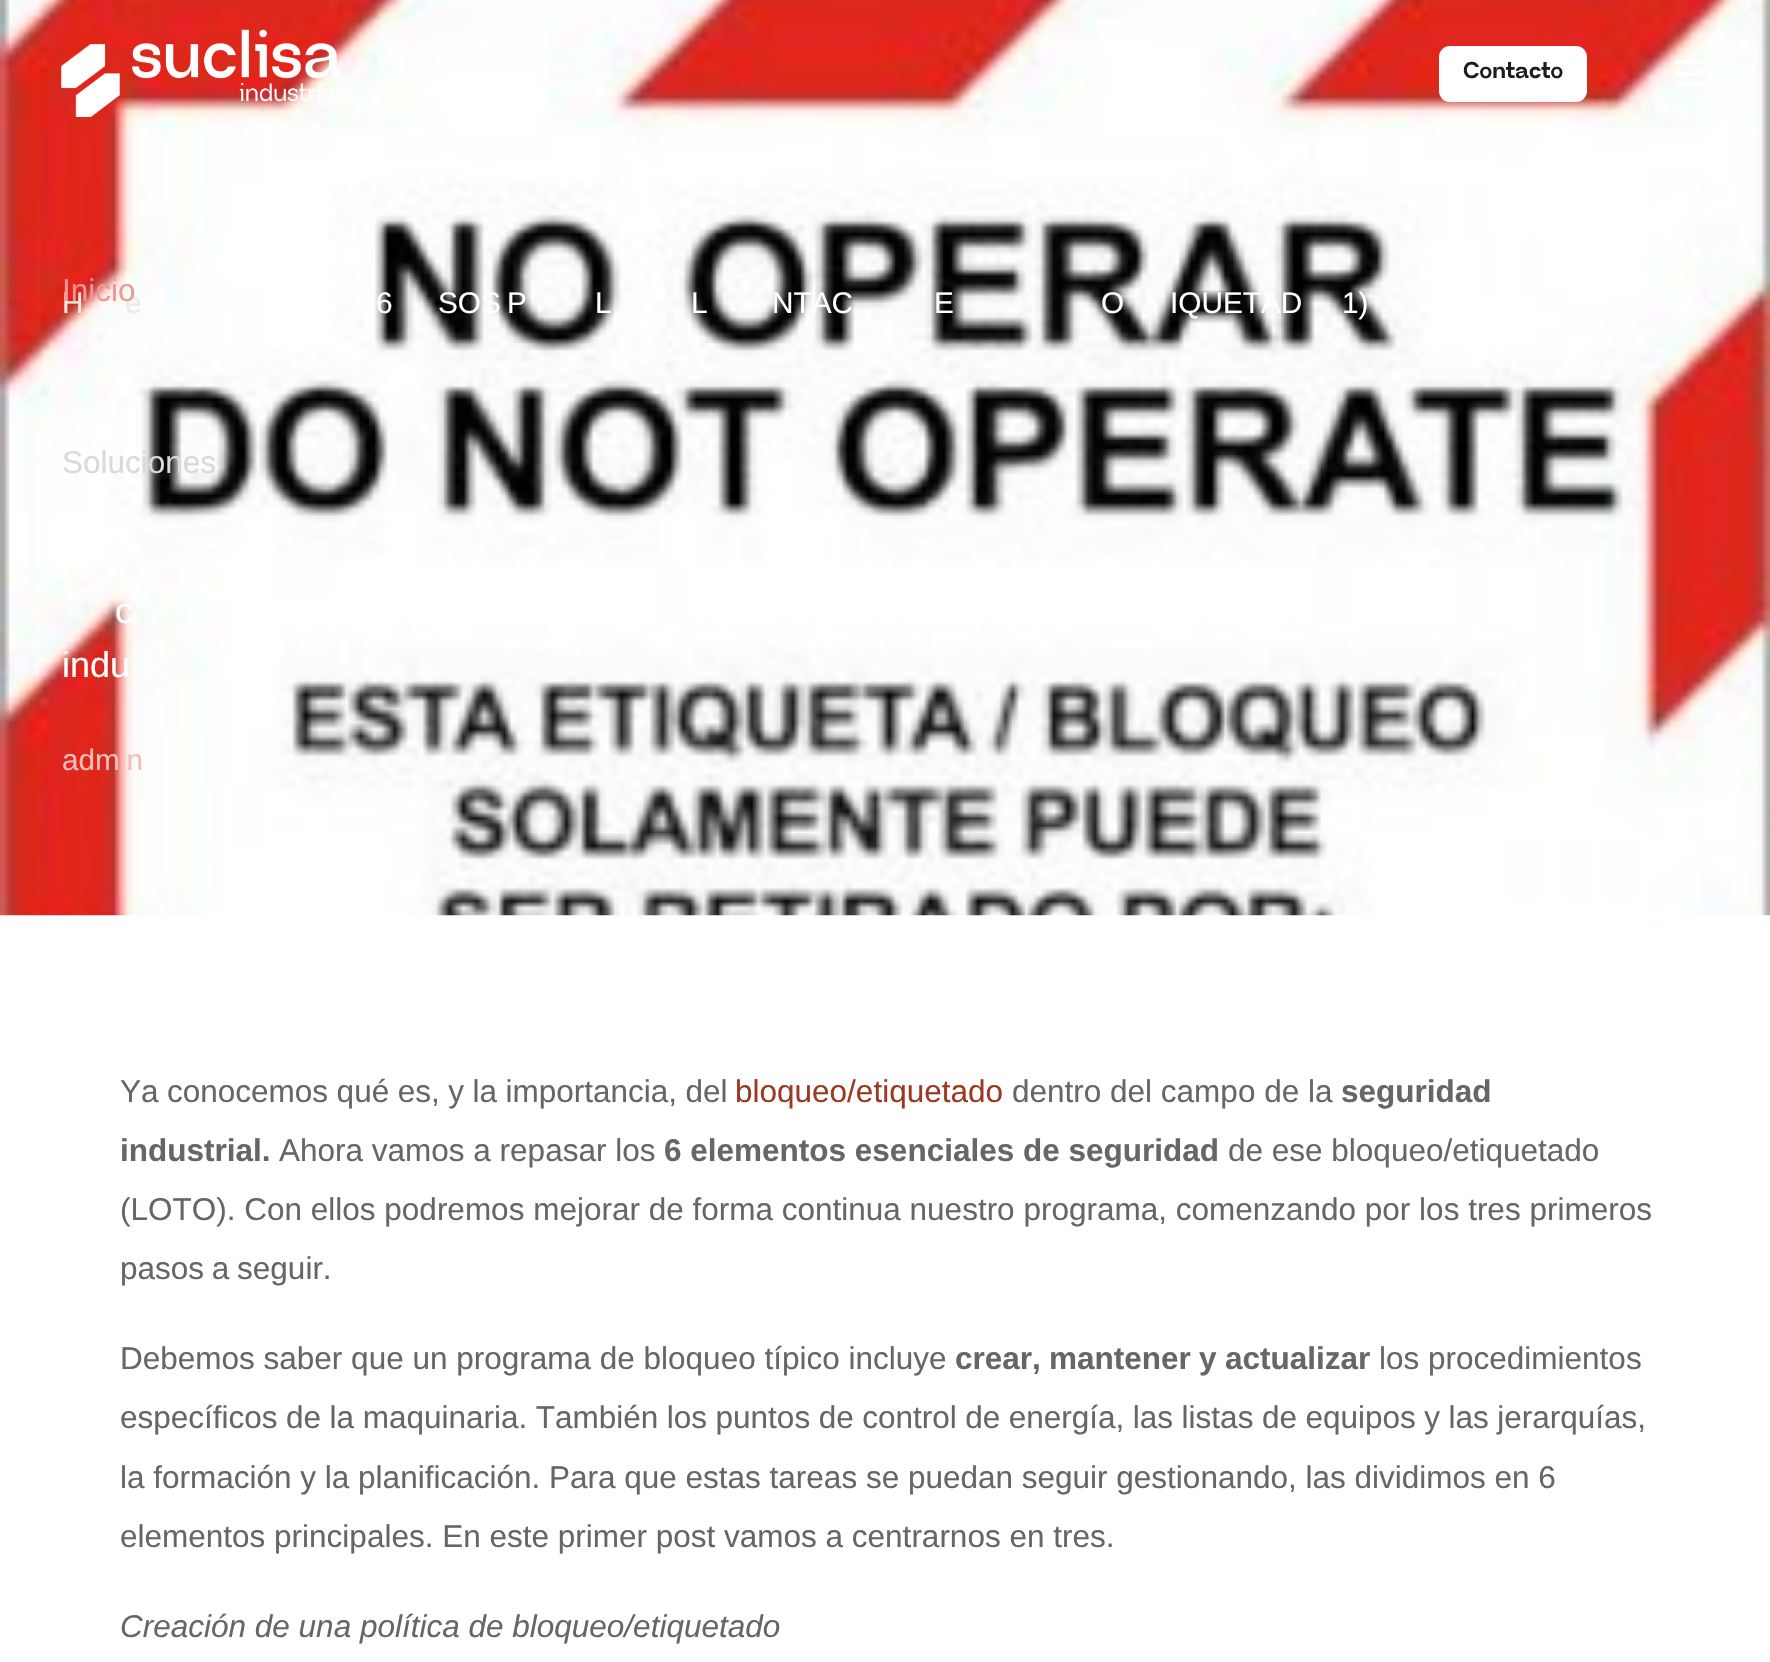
void draw(SkCanvas* canvas) {
  SkPaint paint;
  paint.setAntiAlias(true);
  auto face = [&](const char* family, int weight, float size, bool italic = false) {
    SkFontStyle style(weight, SkFontStyle::kNormal_Width,
      italic ? SkFontStyle::kItalic_Slant : SkFontStyle::kUpright_Slant);
    SkFont result(fontMgr->matchFamilyStyle(family, style), size);
    result.setSubpixel(true);
    return result;
  };
  auto writeSpaced = [&](const char* s, float x, float y, const SkFont& font, const SkPaint& ink, float letter, float word) {
    std::vector<SkGlyphID> glyphs(font.countText(s, strlen(s), SkTextEncoding::kUTF8));
    std::vector<float> xs(glyphs.size());
    font.textToGlyphs(s, strlen(s), SkTextEncoding::kUTF8, glyphs);
    font.getXPos(glyphs, xs, x);
    float extra = 0;
    for (size_t i = 0; i < glyphs.size(); i++) {
      xs[i] += extra;
      extra += letter + word * (glyphs[i] == font.unicharToGlyph(' '));
    }
    canvas->drawTextBlob(SkTextBlob::MakeFromPosHGlyphs(glyphs, xs, y, font), 0, 0, ink);
  };
  auto paste = [&](const char* path, float x, float y, float w, float h) {
    auto image = SkImages::DeferredFromEncodedData(SkData::MakeFromFileName(path));
    canvas->drawImageRect(image, SkRect::MakeXYWH(x, y, w, h), SkSamplingOptions());
  };
  canvas->clear(0xffffffff);
  paste("img/2.png", 0, 0, 1770, 916);
  paste("img/1.png", 61, 29, 280, 88);
  paint.setColor(0xffffffff);
  canvas->drawRoundRect(SkRect::MakeXYWH(1439, 46, 148, 56), 11, 11, paint);
  canvas->drawRoundRect(SkRect::MakeXYWH(1675, 60, 35, 4), 2, 2, paint);
  canvas->drawRoundRect(SkRect::MakeXYWH(1675, 72, 28, 4), 2, 2, paint);
  canvas->drawRoundRect(SkRect::MakeXYWH(1675, 82, 35, 4), 2, 2, paint);
  auto f0 = face("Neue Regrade", 700, 22.75f);
  paint.setColor(0xff1d1d21);
  canvas->drawString("Contacto", 1463, 78, f0, paint);
  auto f1 = face("Liberation Sans", 400, 29.75f);
  paint.setColor(0xfff8e6e4);
  canvas->drawString("H", 62, 313, f1, paint);
  canvas->drawString("e", 125, 313, f1, paint);
  paint.setColor(0xffffffff);
  {
    const struct { const char* s; float x, y; } items[] = {
      {"6", 376, 313},
      {"SOS P", 438, 313},
      {"L", 595, 313},
      {"L", 691, 313},
      {"NTAC", 772, 313},
      {"E", 934, 313},
      {"O", 1101, 313},
      {"IQUETAD", 1170, 313},
      {"1)", 1342, 313},
    };
    for (auto [s, x, y] : items) {
      writeSpaced(s, x, y, f1, paint, 0, -2);
    }
  }
  auto f2 = face("Liberation Sans", 400, 36);
  writeSpaced("c", 115, 623, f2, paint, 0, -0.25f);
  canvas->drawString("indu", 62, 677, f2, paint);
  paint.setColor(0xfff5bebb);
  canvas->drawString("admin", 62, 770, f1, paint);
  auto f3 = face("Liberation Sans", 400, 31.5f);
  paint.setColor(0xff666666);
  writeSpaced("Ya conocemos qué es, y la importancia, del", 120, 1102, f3, paint, 0, -0.25f);
  paint.setColor(0xff9b3922);
  canvas->drawString("bloqueo/etiquetado", 735, 1102, f3, paint);
  paint.setColor(0xff666666);
  canvas->drawString("dentro del campo de la", 1012, 1102, f3, paint);
  auto f4 = face("Liberation Sans", 700, 31.5f);
  canvas->drawString("seguridad", 1341, 1102, f4, paint);
  canvas->drawString("industrial.", 120, 1161, f4, paint);
  canvas->drawString("Ahora vamos a repasar los", 279, 1161, f3, paint);
  canvas->drawString("6 elementos esenciales de seguridad", 664, 1161, f4, paint);
  canvas->drawString("de ese bloqueo/etiquetado", 1228, 1161, f3, paint);
  canvas->drawString("(LOTO). Con ellos podremos mejorar de forma continua nuestro programa, comenzando por los tres primeros", 120, 1220, f3, paint);
  writeSpaced("pasos a seguir.", 120, 1279, f3, paint, 0, -1);
  canvas->drawString("Debemos saber que un programa de bloqueo típico incluye", 120, 1369, f3, paint);
  writeSpaced("crear, mantener y actualizar", 955, 1369, f4, paint, 0, -0.5f);
  canvas->drawString("los procedimientos", 1379, 1369, f3, paint);
  writeSpaced("específicos de la maquinaria. También los puntos de control de energía, las listas de equipos y las jerarquías,", 120, 1428, f3, paint, 0, -0.25f);
  canvas->drawString("la formación y la planificación. Para que estas tareas se puedan seguir gestionando, las dividimos en 6", 120, 1488, f3, paint);
  canvas->drawString("elementos principales. En este primer post vamos a centrarnos en tres.", 120, 1547, f3, paint);
  auto f5 = face("Liberation Sans", 400, 31.5f, true);
  canvas->drawString("Creación de una política de bloqueo/etiquetado", 120, 1637, f5, paint);
  paint.setColor(0xffeb9994);
  canvas->drawString("Inicio", 62, 301, f3, paint);
  paint.setColor(0xffd9d9d9);
  canvas->drawString("Soluciones", 62, 473, f3, paint);
}
